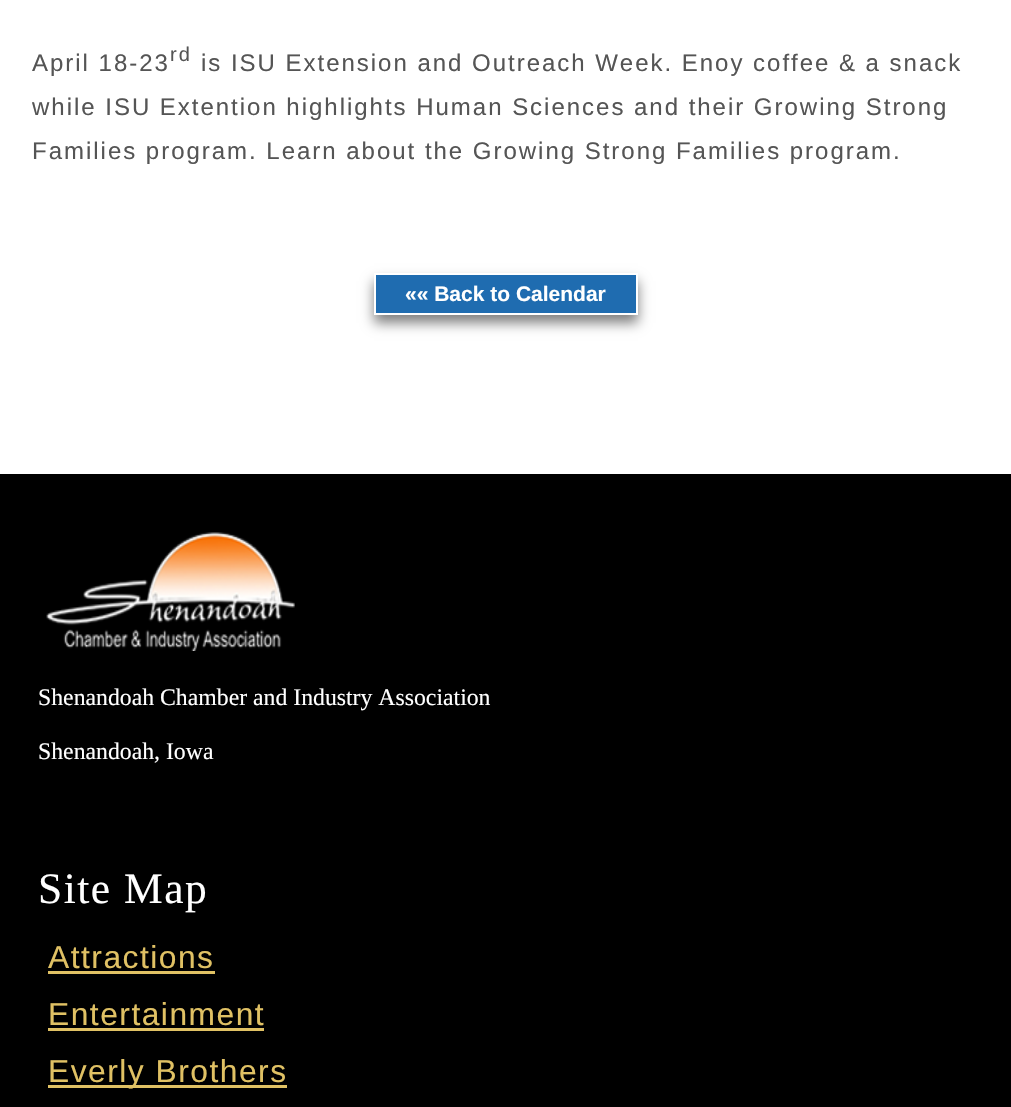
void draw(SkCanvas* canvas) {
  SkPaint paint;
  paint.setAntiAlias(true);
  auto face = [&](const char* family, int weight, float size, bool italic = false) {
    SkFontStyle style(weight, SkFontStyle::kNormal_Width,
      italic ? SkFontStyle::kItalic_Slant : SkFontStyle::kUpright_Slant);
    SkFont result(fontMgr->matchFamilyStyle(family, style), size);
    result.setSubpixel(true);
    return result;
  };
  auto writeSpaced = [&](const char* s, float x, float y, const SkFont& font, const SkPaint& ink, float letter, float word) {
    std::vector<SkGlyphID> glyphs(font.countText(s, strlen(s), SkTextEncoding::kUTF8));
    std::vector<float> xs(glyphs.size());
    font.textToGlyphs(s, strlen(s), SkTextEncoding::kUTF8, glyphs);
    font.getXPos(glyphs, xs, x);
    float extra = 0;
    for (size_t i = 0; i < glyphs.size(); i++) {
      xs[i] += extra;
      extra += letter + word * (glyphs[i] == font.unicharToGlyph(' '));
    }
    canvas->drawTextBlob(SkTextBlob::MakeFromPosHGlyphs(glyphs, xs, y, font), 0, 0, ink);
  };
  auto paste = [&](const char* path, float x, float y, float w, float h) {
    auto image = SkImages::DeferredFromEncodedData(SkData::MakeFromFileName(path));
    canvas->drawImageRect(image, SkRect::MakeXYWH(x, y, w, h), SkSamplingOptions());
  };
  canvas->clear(0xffffffff);
  paint.setColor(0x80000000);
  paint.setMaskFilter(SkMaskFilter::MakeBlur(kNormal_SkBlurStyle, 6));
  canvas->drawRect(SkRect::MakeXYWH(374, 281, 264, 42), paint);
  paint.setMaskFilter(nullptr);
  paint.setColor(0xff1f6cb0);
  canvas->drawRect(SkRect::MakeXYWH(375, 274, 262, 40), paint);
  paint.setStroke(true);
  paint.setStrokeWidth(2);
  paint.setColor(0xffffffff);
  canvas->drawRect(SkRect::MakeXYWH(375, 274, 262, 40), paint);
  paint.setStroke(false);
  paint.setColor(0xff000000);
  canvas->drawRect(SkRect::MakeXYWH(0, 474, 1011, 633), paint);
  paste("img/1.png", 46, 532, 249, 119);
  {
    const struct { float x, y, w, h; SkColor color; } items[] = {
      {48, 971, 167, 3, 0xffe0c164},
      {48, 1028, 216, 3, 0xffe0c164},
      {48, 1085, 239, 3, 0xffe0c164},
    };
    for (auto [x, y, w, h, color] : items) {
      paint.setColor(color);
      canvas->drawRect(SkRect::MakeXYWH(x, y, w, h), paint);
    }
  }
  auto f0 = face("Liberation Sans", 400, 24);
  paint.setColor(0xff555555);
  writeSpaced("April 18-23", 32, 71, f0, paint, 1.98f, 0);
  auto f1 = face("Liberation Sans", 400, 20);
  writeSpaced("rd", 170, 61, f1, paint, 1.98f, 0);
  {
    const struct { const char* s; float x, y; } items[] = {
      {"is ISU Extension and Outreach Week. Enoy coffee & a snack", 201, 71},
      {"while ISU Extention highlights Human Sciences and their Growing Strong", 32, 115},
      {"Families program. Learn about the Growing Strong Families program.", 32, 159},
    };
    for (auto [s, x, y] : items) {
      writeSpaced(s, x, y, f0, paint, 1.98f, 0);
    }
  }
  auto f2 = face("Liberation Sans", 700, 21);
  paint.setColor(0xffffffff);
  canvas->drawString("«« Back to Calendar", 405, 301, f2, paint);
  auto f3 = face("Liberation Serif", 400, 23.75f);
  canvas->drawString("Shenandoah Chamber and Industry Association", 38, 705, f3, paint);
  canvas->drawString("Shenandoah, Iowa", 38, 759, f3, paint);
  auto f4 = face("Liberation Serif", 400, 43.5f);
  writeSpaced("Site Map", 38, 903, f4, paint, 1.5f, 0);
  auto f5 = face("Liberation Sans", 400, 31.75f);
  paint.setColor(0xffe0c164);
  {
    const struct { const char* s; float x, y; } items[] = {
      {"Attractions", 48, 968},
      {"Entertainment", 48, 1025},
      {"Everly Brothers", 48, 1082},
    };
    for (auto [s, x, y] : items) {
      writeSpaced(s, x, y, f5, paint, 1.5f, 0);
    }
  }
}
